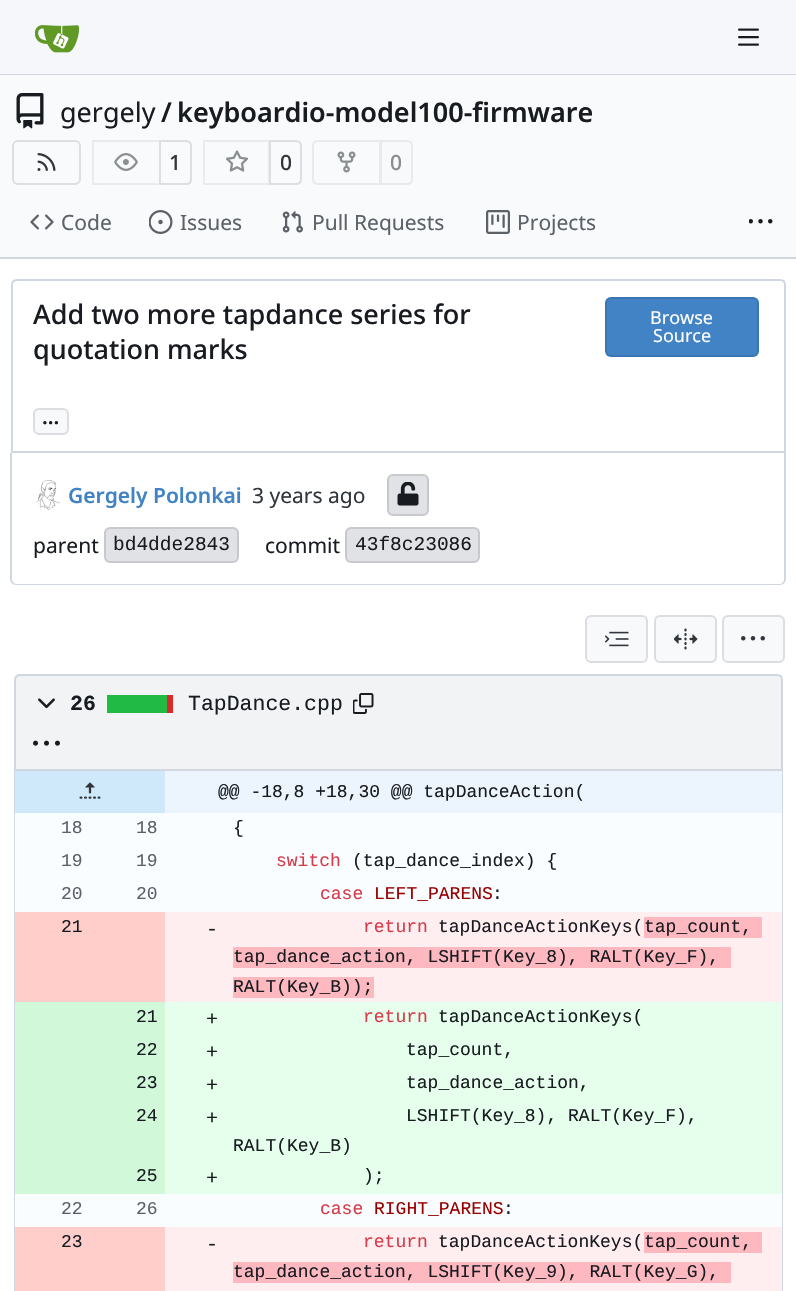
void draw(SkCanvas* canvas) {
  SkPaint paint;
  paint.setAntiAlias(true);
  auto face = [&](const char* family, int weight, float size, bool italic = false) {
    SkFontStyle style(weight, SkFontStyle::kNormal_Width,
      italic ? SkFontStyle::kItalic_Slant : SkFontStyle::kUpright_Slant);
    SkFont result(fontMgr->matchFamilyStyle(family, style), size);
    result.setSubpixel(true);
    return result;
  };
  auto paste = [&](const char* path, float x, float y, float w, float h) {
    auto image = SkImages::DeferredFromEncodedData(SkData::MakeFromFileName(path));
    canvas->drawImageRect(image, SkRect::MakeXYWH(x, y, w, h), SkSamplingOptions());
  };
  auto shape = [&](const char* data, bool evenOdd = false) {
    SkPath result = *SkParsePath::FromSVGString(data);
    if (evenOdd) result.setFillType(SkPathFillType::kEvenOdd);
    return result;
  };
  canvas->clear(0xffffffff);
  paint.setColor(0xfff6f7fa);
  canvas->drawRect(SkRect::MakeXYWH(0, 0, 796, 74), paint);
  paint.setColor(0xffd0d7de);
  canvas->drawRect(SkRect::MakeXYWH(0, 74, 796, 1), paint);
  paste("img/1.png", 35, 25, 45, 28);
  paste("img/2.png", 738, 28, 21, 18);
  paint.setColor(0xfff9fafb);
  canvas->drawRect(SkRect::MakeXYWH(0, 75, 796, 182), paint);
  paste("img/3.png", 16, 93, 28, 36);
  paint.setStroke(true);
  paint.setStrokeWidth(2);
  paint.setColor(0xffdddee1);
  canvas->drawRoundRect(SkRect::MakeXYWH(13, 141, 67, 43), 5, 5, paint);
  paste("img/4.png", 37, 153, 19, 18);
  canvas->drawPath(shape("M160 141H186C189 141 191 143 191 146V179C191 182 189 184 186 184H160Z"), paint);
  paint.setStroke(false);
  paint.setColor(0x8cf8f9fb);
  canvas->drawPath(shape("M98 140H161V185H98C94.5 185 92 182.5 92 179V146C92 142.5 94.5 140 98 140Z"), paint);
  paint.setStroke(true);
  paint.setColor(0x0f000017);
  canvas->drawRect(SkRect::MakeXYWH(93, 141, 67, 43), paint);
  paste("img/5.png", 114, 153, 24, 18);
  paint.setColor(0xffdddee1);
  canvas->drawPath(shape("M270 141H296C299 141 301 143 301 146V179C301 182 299 184 296 184H270Z"), paint);
  paint.setStroke(false);
  paint.setColor(0x8cf8f9fb);
  canvas->drawPath(shape("M209 140H270V185H209C205.5 185 203 182.5 203 179V146C203 142.5 205.5 140 209 140Z"), paint);
  paint.setStroke(true);
  paint.setColor(0x0f000017);
  canvas->drawRect(SkRect::MakeXYWH(204, 141, 65, 43), paint);
  paste("img/6.png", 225, 150, 24, 22);
  paint.setColor(0xffe9eaed);
  canvas->drawPath(shape("M318 141H380V184H318C315 184 313 182 313 179V146C313 143 315 141 318 141Z"), paint);
  paste("img/7.png", 337, 151, 19, 22);
  paint.setStroke(false);
  paint.setColor(0xfff8f9fb);
  canvas->drawPath(shape("M381 141H407C410 141 412 143 412 146V179C412 182 410 184 407 184H381Z"), paint);
  paint.setStroke(true);
  paint.setColor(0xffe9eaed);
  canvas->drawPath(shape("M381 141H407C410 141 412 143 412 146V179C412 182 410 184 407 184H381Z"), paint);
  paste("img/8.png", 30, 214, 24, 16);
  paste("img/9.png", 149, 210, 24, 24);
  paste("img/10.png", 282, 211, 21, 22);
  paste("img/11.png", 486, 210, 24, 24);
  paste("img/12.png", 749, 219, 24, 5);
  paint.setStroke(false);
  paint.setColor(0xffd0d7de);
  canvas->drawRect(SkRect::MakeXYWH(0, 257, 796, 2), paint);
  paint.setStroke(true);
  canvas->drawPath(shape("M17 280H780C783 280 785 282 785 285V452H12V285C12 282 14 280 17 280Z"), paint);
  paint.setStroke(false);
  paint.setColor(0xff4183c4);
  canvas->drawRoundRect(SkRect::MakeXYWH(605, 297, 154, 60), 6, 6, paint);
  paint.setStroke(true);
  paint.setColor(0x1c000017);
  canvas->drawRoundRect(SkRect::MakeXYWH(606, 298, 152, 58), 5, 5, paint);
  paint.setStroke(false);
  paint.setColor(0xfff8f9fb);
  canvas->drawRoundRect(SkRect::MakeXYWH(34, 409, 34, 25), 5, 5, paint);
  paint.setStroke(true);
  paint.setColor(0xffdcdde1);
  canvas->drawRoundRect(SkRect::MakeXYWH(34, 409, 34, 25), 5, 5, paint);
  paint.setStroke(false);
  paint.setColor(0xffd0d7de);
  canvas->drawPath(shape("M10 453H786V579C786 582 783 585 780 585H16C13 585 10 582 10 579ZM12 453H784V579C784 581 782 584 780 584H16C14 584 12 581 12 579Z", true), paint);
  paste("img/13.png", 36, 480, 24, 30);
  paint.setColor(0xffe0e2e5);
  canvas->drawRoundRect(SkRect::MakeXYWH(387, 474, 42, 42), 6, 6, paint);
  paint.setStroke(true);
  paint.setColor(0x1c000017);
  canvas->drawRoundRect(SkRect::MakeXYWH(388, 475, 40, 40), 5, 5, paint);
  paste("img/14.png", 397, 482, 22, 24);
  paint.setStroke(false);
  paint.setColor(0xffe0e2e5);
  canvas->drawRoundRect(SkRect::MakeXYWH(104, 527, 135, 36), 6, 6, paint);
  paint.setStroke(true);
  paint.setColor(0x1c000017);
  canvas->drawRoundRect(SkRect::MakeXYWH(105, 528, 133, 34), 5, 5, paint);
  paint.setStroke(false);
  paint.setColor(0xffe0e2e5);
  canvas->drawRoundRect(SkRect::MakeXYWH(345, 527, 135, 36), 6, 6, paint);
  paint.setStroke(true);
  paint.setColor(0x1c000017);
  canvas->drawRoundRect(SkRect::MakeXYWH(346, 528, 133, 34), 5, 5, paint);
  paint.setStroke(false);
  paint.setColor(0xfff8f9fb);
  canvas->drawRoundRect(SkRect::MakeXYWH(586, 616, 61, 46), 5, 5, paint);
  paint.setStroke(true);
  paint.setColor(0xffdcdde1);
  canvas->drawRoundRect(SkRect::MakeXYWH(586, 616, 61, 46), 5, 5, paint);
  paste("img/15.png", 605, 631, 24, 16);
  paint.setStroke(false);
  paint.setColor(0xfff8f9fb);
  canvas->drawRoundRect(SkRect::MakeXYWH(655, 616, 61, 46), 5, 5, paint);
  paint.setStroke(true);
  paint.setColor(0xffdcdde1);
  canvas->drawRoundRect(SkRect::MakeXYWH(655, 616, 61, 46), 5, 5, paint);
  paste("img/16.png", 674, 628, 24, 22);
  paint.setStroke(false);
  paint.setColor(0xfff8f9fb);
  canvas->drawRoundRect(SkRect::MakeXYWH(723, 616, 61, 46), 5, 5, paint);
  paint.setStroke(true);
  paint.setColor(0xffdcdde1);
  canvas->drawRoundRect(SkRect::MakeXYWH(723, 616, 61, 46), 5, 5, paint);
  paste("img/17.png", 741, 636, 24, 5);
  paint.setStroke(false);
  paint.setColor(0xfff1f3f5);
  canvas->drawPath(shape("M20 675H777C780 675 782 677 782 680V770H15V680C15 677 17 675 20 675Z"), paint);
  paint.setStroke(true);
  paint.setColor(0xffd0d7de);
  canvas->drawPath(shape("M20 675H777C780 675 782 677 782 680V770H15V680C15 677 17 675 20 675Z"), paint);
  paste("img/18.png", 38, 698, 17, 11);
  paint.setStroke(false);
  paint.setColor(0xffdb2828);
  canvas->drawRect(SkRect::MakeXYWH(167, 695, 6, 18), paint);
  paint.setColor(0xff21ba45);
  canvas->drawRect(SkRect::MakeXYWH(107, 695, 60, 18), paint);
  paste("img/19.png", 353, 693, 21, 21);
  paste("img/20.png", 33, 740, 27, 6);
  paint.setColor(0xffd0d7de);
  canvas->drawPath(shape("M14 771H783V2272C783 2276 780 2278 777 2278H20C16 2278 14 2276 14 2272ZM15 771H782V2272C782 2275 779 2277 777 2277H20C17 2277 15 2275 15 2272Z", true), paint);
  {
    const struct { float x, y, w, h; SkColor color; } items[] = {
      {15, 813, 767, 414, 0xfffafdff},
      {165, 771, 617, 42, 0xffecf5fd},
      {15, 771, 150, 42, 0xffcfe8fa},
    };
    for (auto [x, y, w, h, color] : items) {
      paint.setColor(color);
      canvas->drawRect(SkRect::MakeXYWH(x, y, w, h), paint);
    }
  }
  paste("img/21.png", 79, 782, 22, 17);
  {
    const struct { float x, y, w, h; SkColor color; } items[] = {
      {165, 912, 617, 90, 0xffffeef0},
      {15, 912, 150, 90, 0xffffcecb},
      {644, 917, 118, 21, 0xfffdb8c0},
      {233, 947, 498, 21, 0xfffdb8c0},
      {233, 977, 141, 21, 0xfffdb8c0},
      {165, 1002, 617, 192, 0xffe6ffed},
      {15, 1002, 150, 33, 0xffd1f8d9},
      {15, 1035, 150, 33, 0xffd1f8d9},
      {15, 1068, 150, 33, 0xffd1f8d9},
      {15, 1101, 150, 60, 0xffd1f8d9},
      {15, 1161, 150, 33, 0xffd1f8d9},
      {165, 1227, 617, 64, 0xffffeef0},
      {15, 1227, 150, 64, 0xffffcecb},
      {644, 1232, 118, 21, 0xfffdb8c0},
      {233, 1262, 498, 21, 0xfffdb8c0},
    };
    for (auto [x, y, w, h, color] : items) {
      paint.setColor(color);
      canvas->drawRect(SkRect::MakeXYWH(x, y, w, h), paint);
    }
  }
  auto f0 = face("Noto Sans", 400, 27);
  paint.setColor(0xff181c21);
  canvas->drawString("gergely", 60, 122, f0, paint);
  auto f1 = face("Noto Sans", 600, 27);
  canvas->drawString("/", 161, 122, f1, paint);
  canvas->drawString("keyboardio-model100-firmware", 177, 122, f1, paint);
  auto f2 = face("Noto Sans", 500, 21);
  paint.setColor(0xff30363b);
  canvas->drawString("1", 169, 170, f2, paint);
  canvas->drawString("0", 280, 170, f2, paint);
  paint.setColor(0xff8a8e91);
  canvas->drawString("0", 390, 170, f2, paint);
  auto f3 = face("Noto Sans", 400, 21);
  paint.setColor(0xff5b6167);
  {
    const struct { const char* s; float x, y; } items[] = {
      {"Code", 61, 230},
      {"Issues", 180, 230},
      {"Pull Requests", 312, 230},
      {"Projects", 517, 230},
    };
    for (auto [s, x, y] : items) {
      canvas->drawString(s, x, y, f3, paint);
    }
  }
  auto f4 = face("Noto Sans", 500, 27);
  paint.setColor(0xff181c21);
  canvas->drawString("Add two more tapdance series for", 33, 324, f4, paint);
  canvas->drawString("quotation marks", 33, 359, f4, paint);
  auto f5 = face("Noto Sans", 400, 18);
  paint.setColor(0xffffffff);
  canvas->drawString("Browse", 650, 324, f5, paint);
  canvas->drawString("Source", 653, 342, f5, paint);
  auto f6 = face("Noto Sans", 600, 21);
  paint.setColor(0xff181c21);
  canvas->drawString("...", 42, 424, f6, paint);
  paint.setColor(0xff4183c4);
  canvas->drawString("Gergely Polonkai", 68, 503, f6, paint);
  paint.setColor(0xff30363b);
  canvas->drawString("3 years ago", 252, 503, f3, paint);
  paint.setColor(0xff181c21);
  canvas->drawString("parent", 33, 553, f3, paint);
  auto f7 = face("Liberation Mono", 400, 19.5f);
  canvas->drawString("bd4dde2843", 113, 550, f7, paint);
  canvas->drawString("commit", 265, 553, f3, paint);
  canvas->drawString("43f8c23086", 355, 550, f7, paint);
  auto f8 = face("Liberation Mono", 700, 21.5f);
  canvas->drawString("26", 70, 710, f8, paint);
  auto f9 = face("Liberation Mono", 400, 21.5f);
  canvas->drawString("TapDance.cpp", 188, 710, f9, paint);
  auto f10 = face("Liberation Mono", 400, 18);
  canvas->drawString("@@ -18,8 +18,30 @@ tapDanceAction(", 218, 797, f10, paint);
  paint.setColor(0xff5b6167);
  canvas->drawString("18", 61, 833, f10, paint);
  canvas->drawString("18", 136, 833, f10, paint);
  paint.setColor(0xff181c21);
  canvas->drawString("{", 233, 833, f10, paint);
  paint.setColor(0xff5b6167);
  canvas->drawString("19", 61, 866, f10, paint);
  canvas->drawString("19", 136, 866, f10, paint);
  paint.setColor(0xffd73a49);
  canvas->drawString("switch", 276, 866, f10, paint);
  paint.setColor(0xff181c21);
  canvas->drawString("(tap_dance_index) {", 352, 866, f10, paint);
  paint.setColor(0xff5b6167);
  canvas->drawString("20", 61, 899, f10, paint);
  canvas->drawString("20", 136, 899, f10, paint);
  paint.setColor(0xffd73a49);
  canvas->drawString("case", 320, 899, f10, paint);
  paint.setColor(0xff990000);
  canvas->drawString("LEFT_PARENS", 374, 899, f10, paint);
  paint.setColor(0xff181c21);
  canvas->drawString(":", 492, 899, f10, paint);
  canvas->drawString("21", 61, 932, f10, paint);
  auto f11 = face("Liberation Mono", 400, 20);
  canvas->drawString("-", 206, 935, f11, paint);
  paint.setColor(0xffd73a49);
  canvas->drawString("return", 363, 932, f10, paint);
  paint.setColor(0xff181c21);
  {
    const struct { const char* s; float x, y; } items[] = {
      {"tapDanceActionKeys(", 438, 932},
      {"tap_count,", 644, 932},
      {"tap_dance_action, LSHIFT(Key_8), RALT(Key_F),", 233, 962},
      {"RALT(Key_B));", 233, 992},
    };
    for (auto [s, x, y] : items) {
      canvas->drawString(s, x, y, f10, paint);
    }
  }
  paint.setColor(0xffd73a49);
  canvas->drawString("return", 363, 1022, f10, paint);
  paint.setColor(0xff181c21);
  canvas->drawString("tapDanceActionKeys(", 438, 1022, f10, paint);
  canvas->drawString("21", 136, 1022, f10, paint);
  canvas->drawString("+", 206, 1025, f11, paint);
  canvas->drawString("22", 136, 1055, f10, paint);
  canvas->drawString("+", 206, 1058, f11, paint);
  {
    const struct { const char* s; float x, y; } items[] = {
      {"tap_count,", 406, 1055},
      {"tap_dance_action,", 406, 1088},
      {"23", 136, 1088},
    };
    for (auto [s, x, y] : items) {
      canvas->drawString(s, x, y, f10, paint);
    }
  }
  canvas->drawString("+", 206, 1091, f11, paint);
  {
    const struct { const char* s; float x, y; } items[] = {
      {"LSHIFT(Key_8), RALT(Key_F),", 406, 1121},
      {"RALT(Key_B)", 233, 1151},
      {"24", 136, 1121},
    };
    for (auto [s, x, y] : items) {
      canvas->drawString(s, x, y, f10, paint);
    }
  }
  canvas->drawString("+", 206, 1124, f11, paint);
  canvas->drawString(");", 363, 1181, f10, paint);
  canvas->drawString("25", 136, 1181, f10, paint);
  canvas->drawString("+", 206, 1184, f11, paint);
  paint.setColor(0xff5b6167);
  canvas->drawString("22", 61, 1214, f10, paint);
  canvas->drawString("26", 136, 1214, f10, paint);
  paint.setColor(0xffd73a49);
  canvas->drawString("case", 320, 1214, f10, paint);
  paint.setColor(0xff990000);
  canvas->drawString("RIGHT_PARENS", 374, 1214, f10, paint);
  paint.setColor(0xff181c21);
  canvas->drawString(":", 503, 1214, f10, paint);
  canvas->drawString("23", 61, 1247, f10, paint);
  canvas->drawString("-", 206, 1250, f11, paint);
  paint.setColor(0xffd73a49);
  canvas->drawString("return", 363, 1247, f10, paint);
  paint.setColor(0xff181c21);
  {
    const struct { const char* s; float x, y; } items[] = {
      {"tapDanceActionKeys(", 438, 1247},
      {"tap_count,", 644, 1247},
      {"tap_dance_action, LSHIFT(Key_9), RALT(Key_G),", 233, 1277},
    };
    for (auto [s, x, y] : items) {
      canvas->drawString(s, x, y, f10, paint);
    }
  }
}
